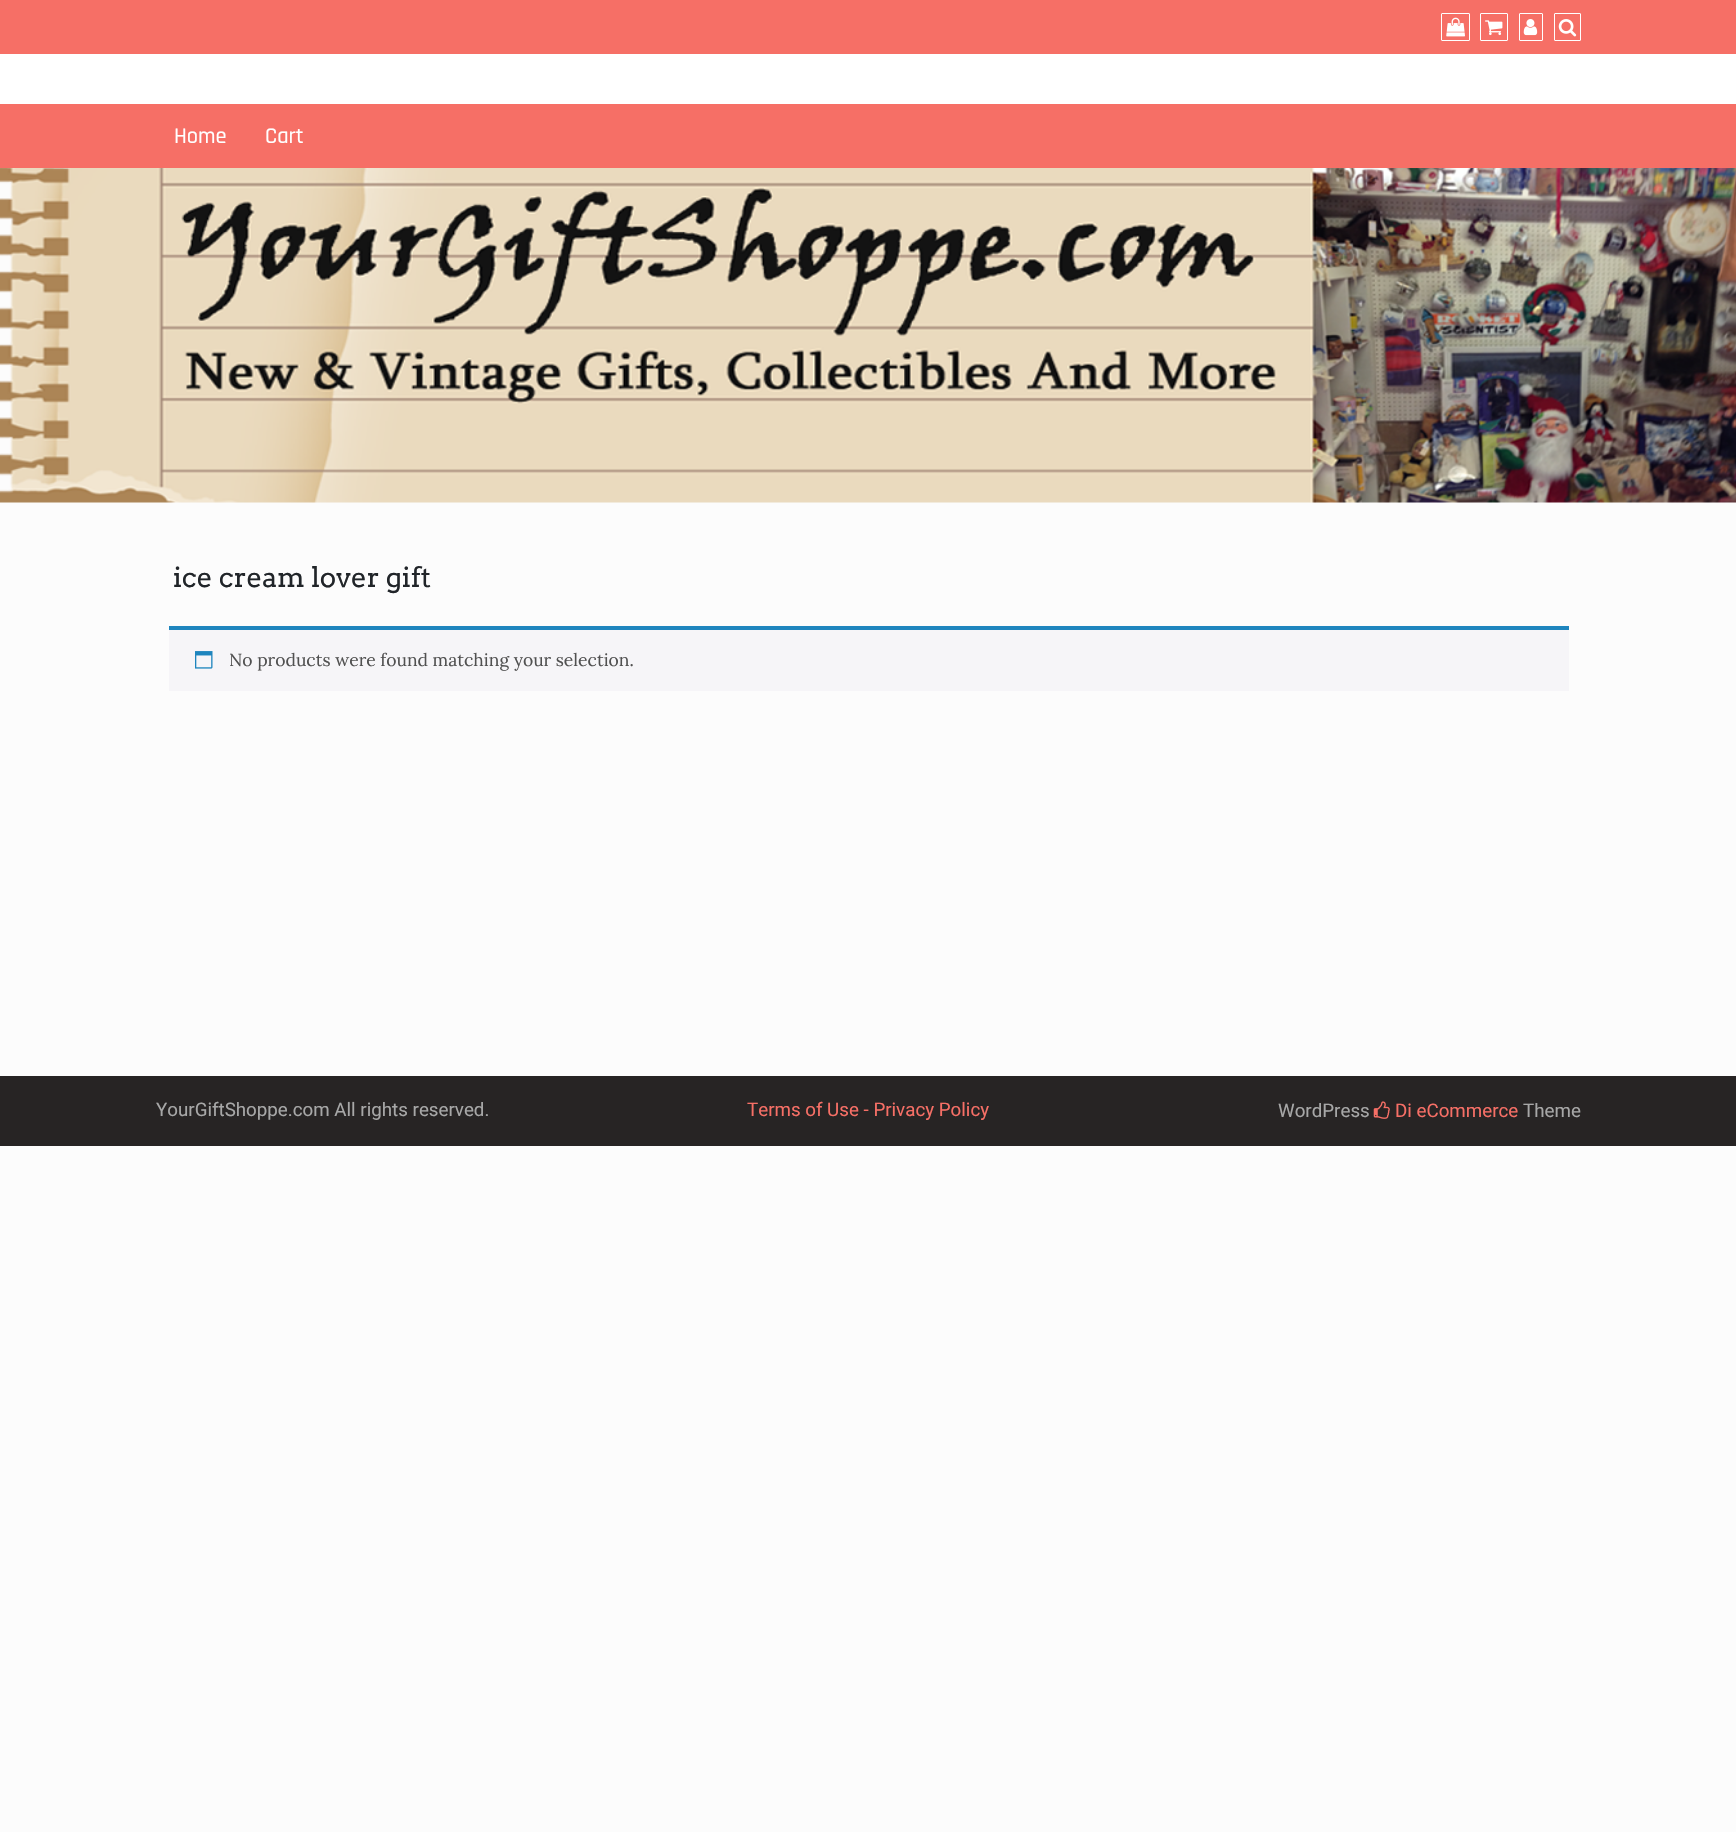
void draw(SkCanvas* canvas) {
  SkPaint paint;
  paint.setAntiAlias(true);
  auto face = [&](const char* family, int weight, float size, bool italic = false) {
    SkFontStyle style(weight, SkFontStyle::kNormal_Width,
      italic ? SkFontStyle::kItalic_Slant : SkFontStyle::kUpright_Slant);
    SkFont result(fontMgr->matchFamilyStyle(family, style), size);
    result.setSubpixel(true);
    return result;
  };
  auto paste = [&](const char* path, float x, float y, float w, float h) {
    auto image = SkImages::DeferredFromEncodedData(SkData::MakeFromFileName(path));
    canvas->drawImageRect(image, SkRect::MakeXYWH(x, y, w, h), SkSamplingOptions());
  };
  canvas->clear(0xfffcfcfc);
  paint.setColor(0xfff66f66);
  canvas->drawRect(SkRect::MakeXYWH(0, 0, 1736, 54), paint);
  paint.setStroke(true);
  paint.setStrokeWidth(1);
  paint.setColor(0xffffffff);
  canvas->drawRoundRect(SkRect::MakeXYWH(1441.5f, 13.5f, 28, 27), 0.5f, 0.5f, paint);
  paste("img/1.png", 1446, 17, 19, 20);
  canvas->drawRoundRect(SkRect::MakeXYWH(1480.5f, 13.5f, 27, 27), 0.5f, 0.5f, paint);
  paste("img/2.png", 1485, 20, 18, 16);
  canvas->drawRoundRect(SkRect::MakeXYWH(1519.5f, 13.5f, 23, 27), 0.5f, 0.5f, paint);
  paste("img/3.png", 1523, 19, 15, 17);
  canvas->drawRoundRect(SkRect::MakeXYWH(1554.5f, 13.5f, 26, 27), 0.5f, 0.5f, paint);
  paste("img/4.png", 1558, 19, 19, 18);
  paint.setStroke(false);
  canvas->drawRect(SkRect::MakeXYWH(0, 54, 1736, 50), paint);
  paint.setColor(0xfff66f66);
  canvas->drawRect(SkRect::MakeXYWH(0, 104, 1736, 64), paint);
  paste("img/5.png", 0, 168, 1736, 335);
  paint.setColor(0xfff6f5f8);
  canvas->drawRect(SkRect::MakeXYWH(169, 630, 1400, 61), paint);
  paint.setColor(0xff1e85be);
  canvas->drawRect(SkRect::MakeXYWH(169, 626, 1400, 4), paint);
  paste("img/6.png", 195, 651, 18, 18);
  paint.setColor(0xff272424);
  canvas->drawRect(SkRect::MakeXYWH(0, 1076, 1736, 70), paint);
  paste("img/7.png", 1373, 1101, 17, 18);
  auto f0 = face("Rajdhani", 500, 22.5f);
  paint.setColor(0xffffffff);
  canvas->drawString("Home", 174, 143, f0, paint);
  canvas->drawString("Cart", 265, 143, f0, paint);
  auto f1 = face("Arvo", 400, 27.5f);
  paint.setColor(0xff212529);
  canvas->drawString("ice cream lover gift", 173, 587, f1, paint);
  auto f2 = face("Lora", 400, 17.5f);
  paint.setColor(0xff515151);
  canvas->drawString("No products were found matching your selection.", 229, 666, f2, paint);
  auto f3 = face("Roboto", 400, 18.75f);
  paint.setColor(0xffa7a7a7);
  canvas->drawString("YourGiftShoppe.com All rights reserved.", 156, 1116, f3, paint);
  paint.setColor(0xfff66f66);
  canvas->drawString("Terms of Use - Privacy Policy", 747, 1116, f3, paint);
  paint.setColor(0xffa7a7a7);
  canvas->drawString("WordPress", 1278, 1117, f3, paint);
  paint.setColor(0xfff66f66);
  canvas->drawString("Di eCommerce", 1395, 1117, f3, paint);
  paint.setColor(0xffa7a7a7);
  canvas->drawString("Theme", 1523, 1117, f3, paint);
}
